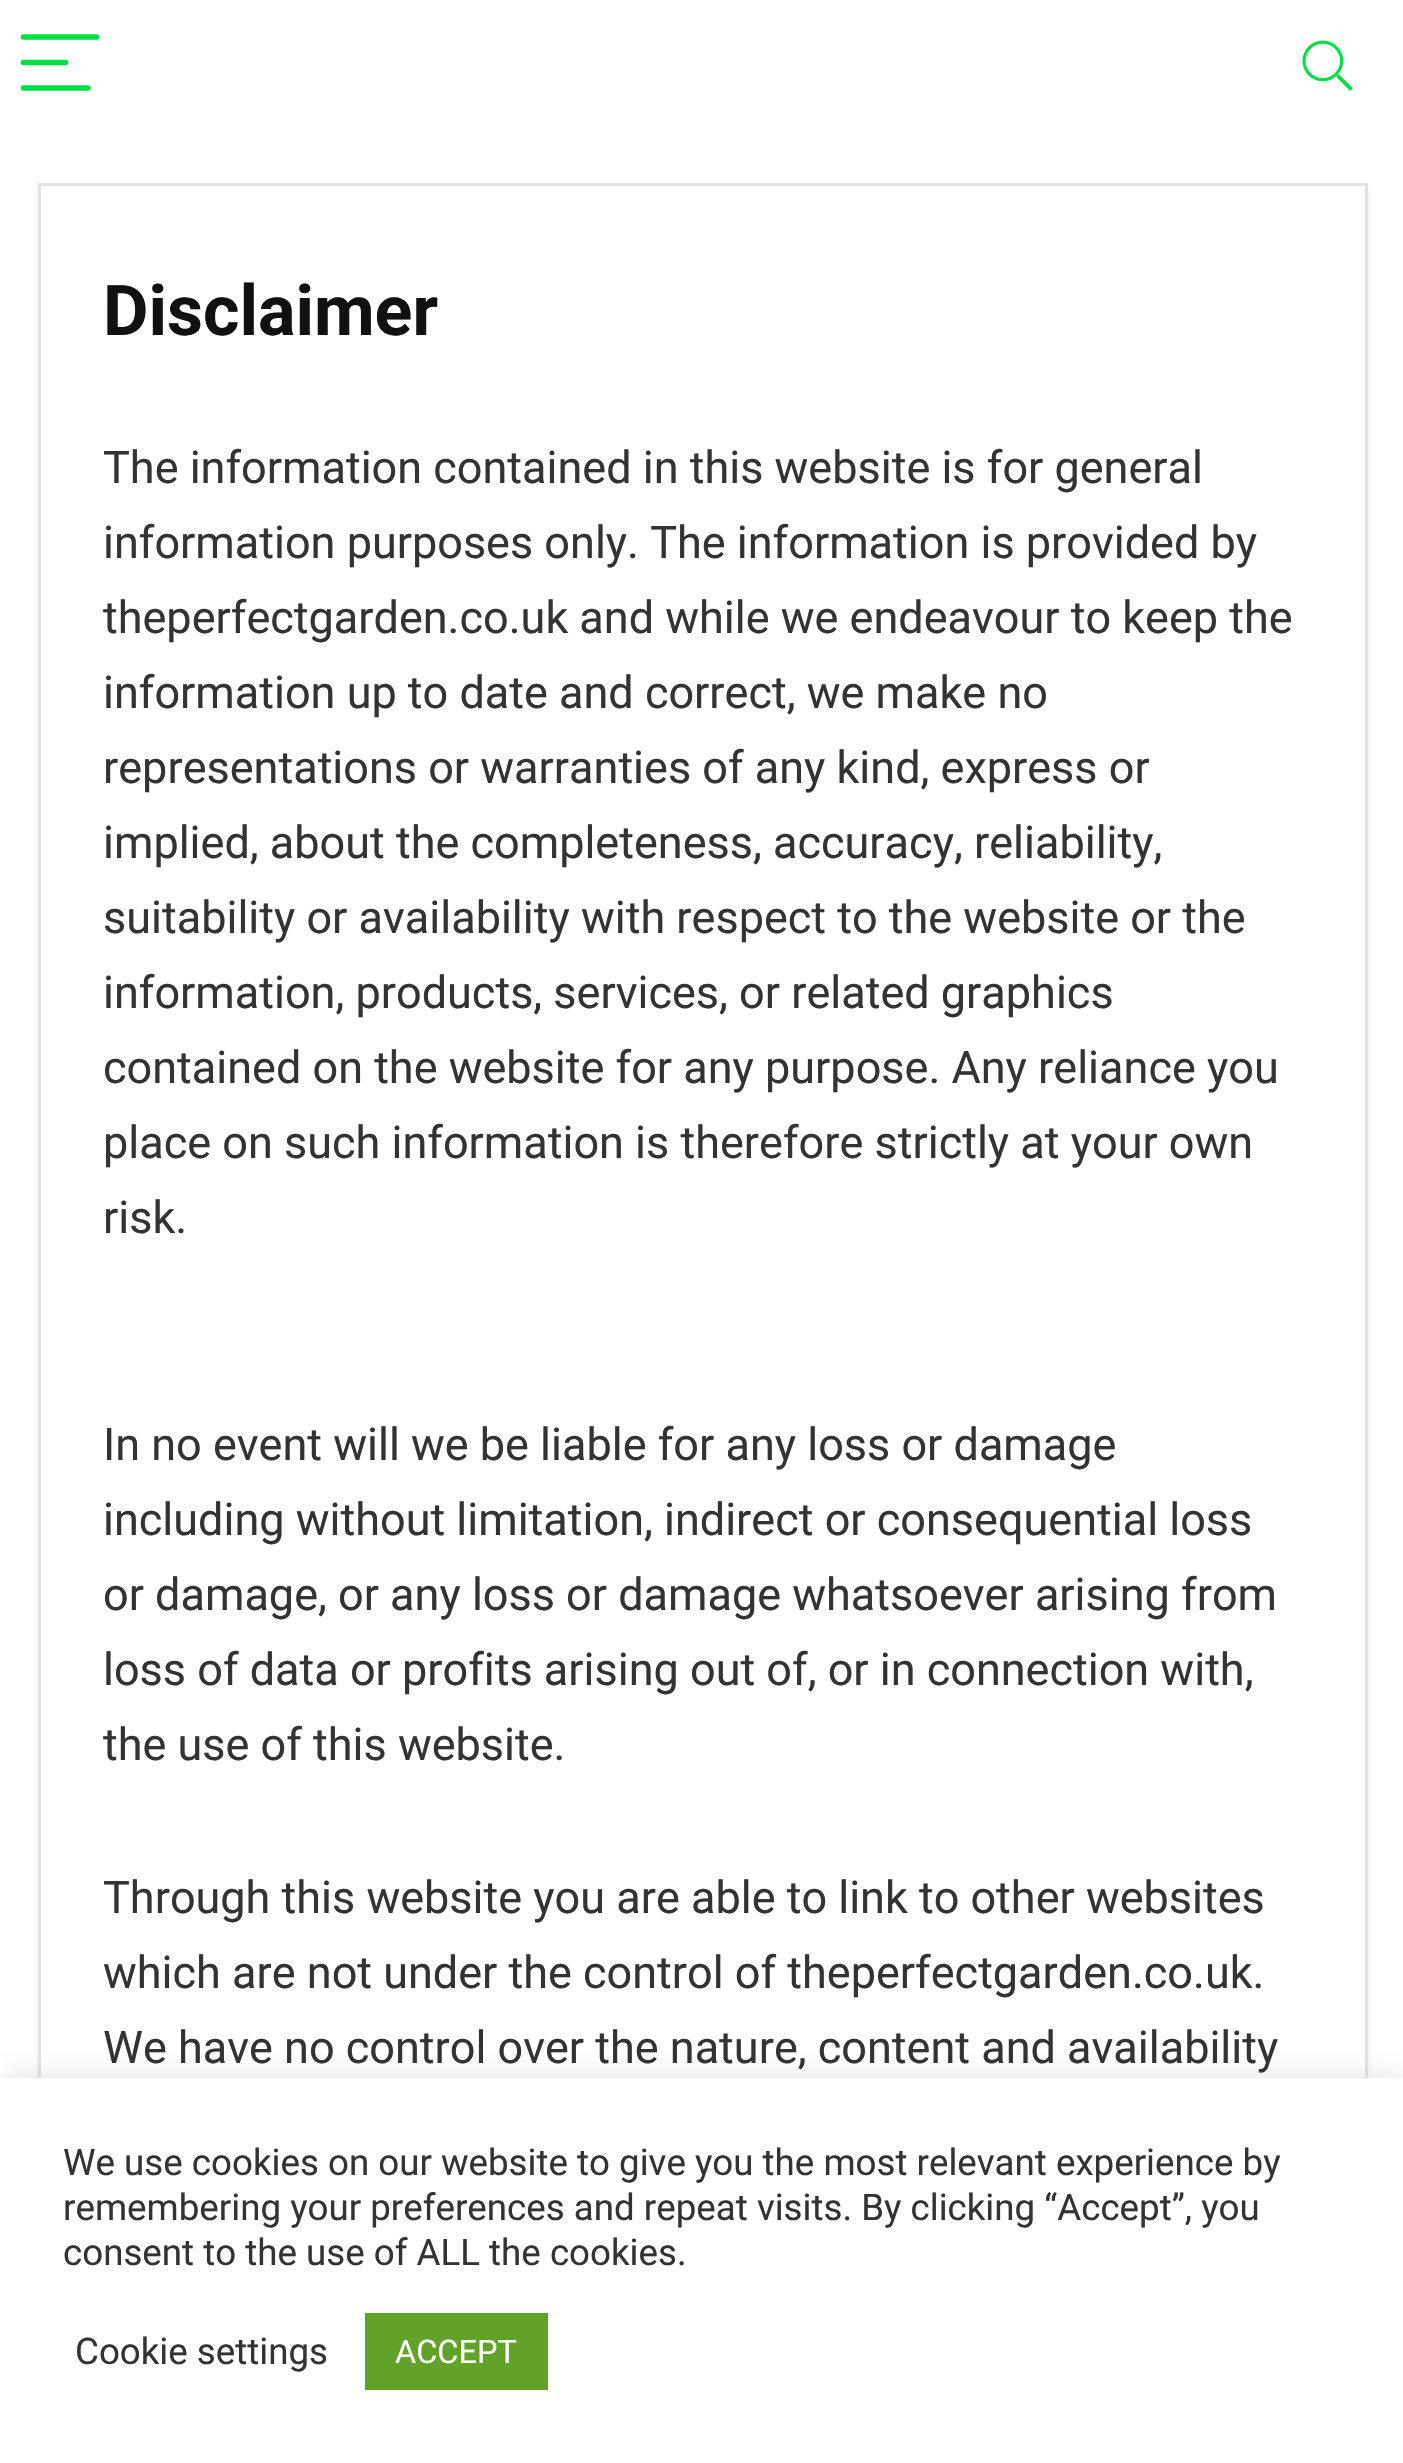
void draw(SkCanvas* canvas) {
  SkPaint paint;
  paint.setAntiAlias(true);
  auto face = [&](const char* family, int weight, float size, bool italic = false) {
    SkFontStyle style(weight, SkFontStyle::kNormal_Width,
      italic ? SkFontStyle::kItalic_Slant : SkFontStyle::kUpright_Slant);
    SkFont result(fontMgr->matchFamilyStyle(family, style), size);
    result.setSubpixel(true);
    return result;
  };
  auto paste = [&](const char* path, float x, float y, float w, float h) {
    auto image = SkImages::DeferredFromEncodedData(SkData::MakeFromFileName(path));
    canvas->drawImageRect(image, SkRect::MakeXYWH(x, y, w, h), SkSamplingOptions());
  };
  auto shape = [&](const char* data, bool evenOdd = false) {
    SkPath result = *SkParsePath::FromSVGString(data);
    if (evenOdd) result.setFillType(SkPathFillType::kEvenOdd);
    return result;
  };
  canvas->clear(0xffffffff);
  paint.setStroke(true);
  paint.setStrokeWidth(5.6f);
  paint.setStrokeCap(SkPaint::kRound_Cap);
  paint.setColor(0xff00df45);
  canvas->drawPath(shape("M23.5 37H96.5"), paint);
  canvas->drawPath(shape("M23.5 62.5H65.5"), paint);
  canvas->drawPath(shape("M23.5 88H88"), paint);
  paste("img/1.png", 1302, 40, 51, 51);
  paint.setStroke(false);
  paint.setColor(0xffececec);
  paint.setMaskFilter(SkMaskFilter::MakeBlur(kNormal_SkBlurStyle, 2.5f));
  canvas->drawRect(SkRect::MakeXYWH(38, 188, 1330, 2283), paint);
  paint.setMaskFilter(nullptr);
  paint.setColor(0xffffffff);
  canvas->drawRect(SkRect::MakeXYWH(41, 186, 1324, 1892), paint);
  paint.setStroke(true);
  paint.setStrokeWidth(3);
  paint.setStrokeCap(SkPaint::kButt_Cap);
  paint.setColor(0xffe3e3e3);
  canvas->drawRect(SkRect::MakeXYWH(39.5f, 184.5f, 1327, 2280), paint);
  paint.setStroke(false);
  paint.setColor(0x4dacabab);
  paint.setMaskFilter(SkMaskFilter::MakeBlur(kNormal_SkBlurStyle, 12.5f));
  canvas->drawRect(SkRect::MakeXYWH(0, 2075, 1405, 388), paint);
  paint.setMaskFilter(nullptr);
  paint.setColor(0xffffffff);
  canvas->drawRect(SkRect::MakeXYWH(0, 2078, 1403, 385), paint);
  paint.setColor(0xff61a229);
  canvas->drawRect(SkRect::MakeXYWH(365, 2313, 183, 77), paint);
  auto f0 = face("Roboto", 700, 70);
  paint.setColor(0xff111111);
  canvas->drawString("Disclaimer", 103, 335, f0, paint);
  auto f1 = face("Roboto", 400, 45);
  paint.setColor(0xff333333);
  {
    const struct { const char* s; float x, y; } items[] = {
      {"The information contained in this website is for general", 103, 483},
      {"information purposes only. The information is provided by", 103, 558},
      {"theperfectgarden.co.uk and while we endeavour to keep the", 103, 633},
      {"information up to date and correct, we make no", 103, 708},
      {"representations or warranties of any kind, express or", 103, 783},
      {"implied, about the completeness, accuracy, reliability,", 103, 858},
      {"suitability or availability with respect to the website or the", 103, 933},
      {"information, products, services, or related graphics", 103, 1008},
      {"contained on the website for any purpose. Any reliance you", 103, 1083},
      {"place on such information is therefore strictly at your own", 103, 1158},
      {"risk.", 103, 1233},
      {"In no event will we be liable for any loss or damage", 103, 1460},
      {"including without limitation, indirect or consequential loss", 103, 1535},
      {"or damage, or any loss or damage whatsoever arising from", 103, 1610},
      {"loss of data or profits arising out of, or in connection with,", 103, 1685},
      {"the use of this website.", 103, 1760},
      {"Through this website you are able to link to other websites", 103, 1913},
      {"which are not under the control of theperfectgarden.co.uk.", 103, 1988},
      {"We have no control over the nature, content and availability", 103, 2063},
    };
    for (auto [s, x, y] : items) {
      canvas->drawString(s, x, y, f1, paint);
    }
  }
  auto f2 = face("Roboto", 400, 36.7f);
  {
    const struct { const char* s; float x, y; } items[] = {
      {"We use cookies on our website to give you the most relevant experience by", 63, 2175},
      {"remembering your preferences and repeat visits. By clicking “Accept”, you", 63, 2220},
      {"consent to the use of ALL the cookies.", 63, 2265},
      {"Cookie settings", 75, 2364},
    };
    for (auto [s, x, y] : items) {
      canvas->drawString(s, x, y, f2, paint);
    }
  }
  auto f3 = face("Roboto", 400, 32.5f);
  paint.setColor(0xffffffff);
  canvas->drawString("ACCEPT", 395, 2363, f3, paint);
}
